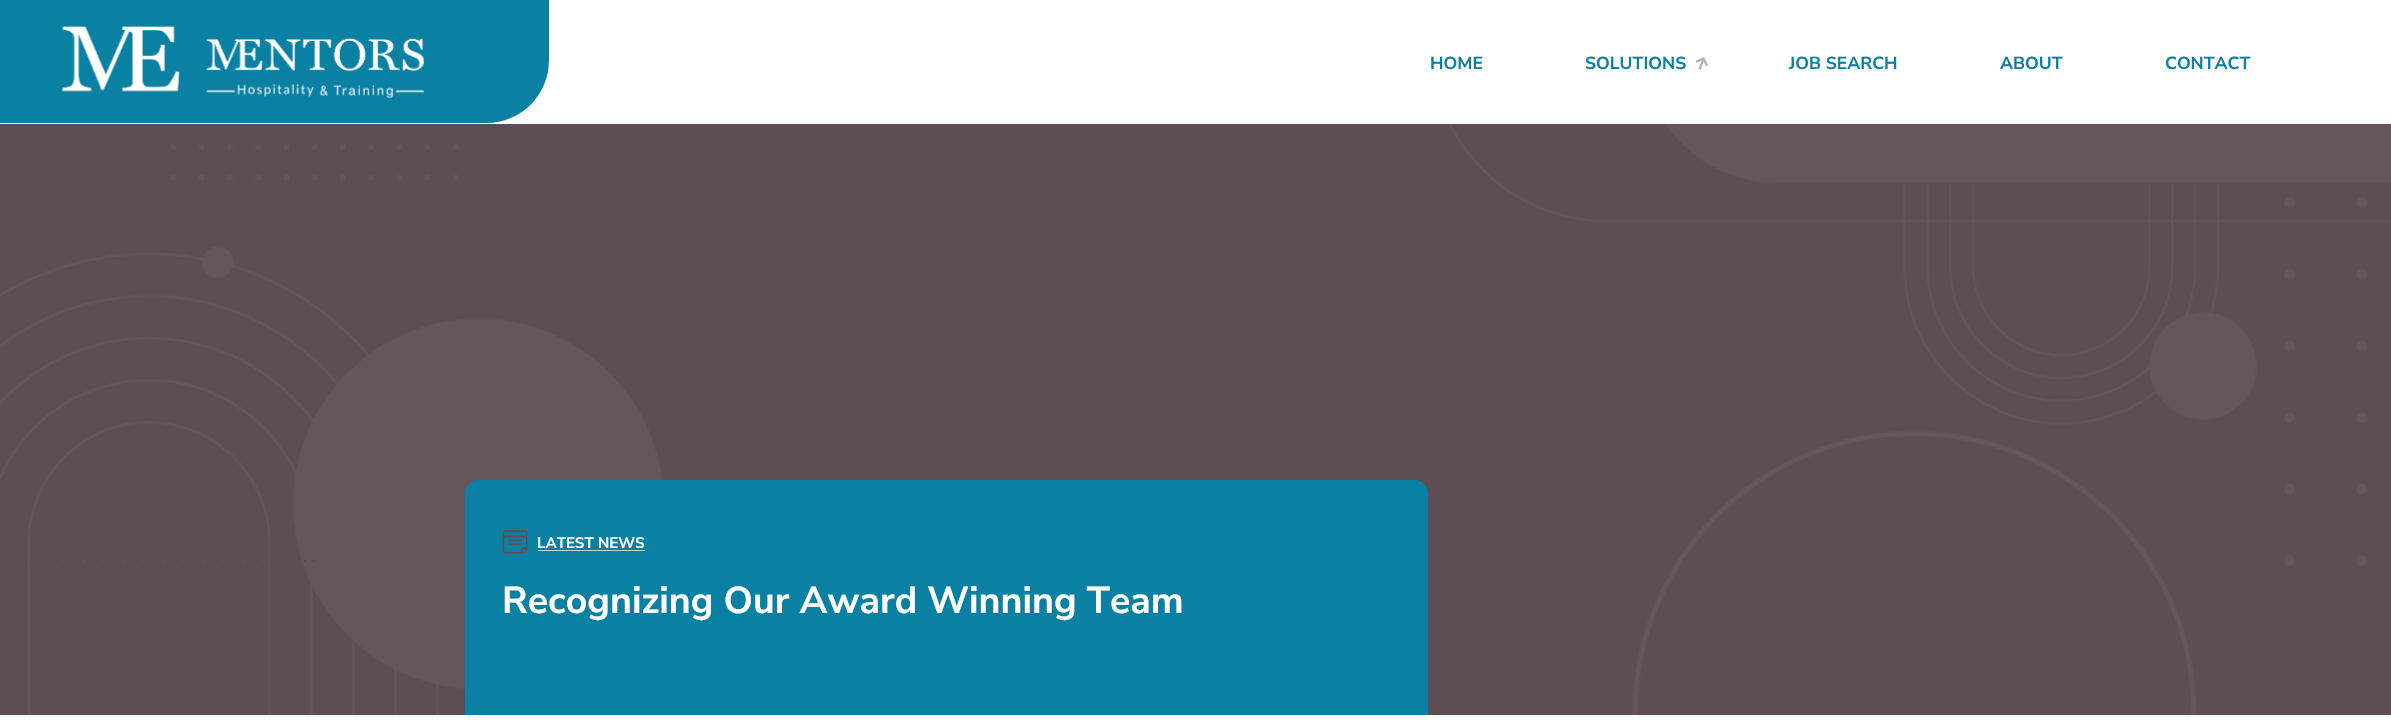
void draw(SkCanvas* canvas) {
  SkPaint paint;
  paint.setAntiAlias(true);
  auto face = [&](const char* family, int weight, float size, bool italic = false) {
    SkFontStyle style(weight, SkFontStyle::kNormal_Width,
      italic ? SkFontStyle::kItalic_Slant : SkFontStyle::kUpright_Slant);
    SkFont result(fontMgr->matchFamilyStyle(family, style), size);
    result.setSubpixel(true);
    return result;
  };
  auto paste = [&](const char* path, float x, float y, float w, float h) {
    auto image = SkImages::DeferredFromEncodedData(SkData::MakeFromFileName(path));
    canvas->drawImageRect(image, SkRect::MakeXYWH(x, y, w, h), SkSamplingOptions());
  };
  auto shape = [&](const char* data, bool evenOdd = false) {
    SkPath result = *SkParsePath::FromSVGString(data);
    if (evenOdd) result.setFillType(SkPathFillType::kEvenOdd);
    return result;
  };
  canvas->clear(0xffffffff);
  paint.setColor(0xff0a80a2);
  canvas->drawPath(shape("M0 0H549V60C549 95 521 123 486 123H0Z"), paint);
  paste("img/1.png", 62, 26, 362, 72);
  paste("img/2.png", 1695, 57, 13, 13);
  paint.setColor(0xff5e4d52);
  canvas->drawRect(SkRect::MakeXYWH(0, 124, 2391, 591), paint);
  paste("img/3.png", 0, 124, 2391, 591);
  paint.setColor(0xff0a80a2);
  canvas->drawPath(shape("M478 480H1415C1422 480 1428 486 1428 493V715H465V493C465 486 471 480 478 480Z"), paint);
  paste("img/4.png", 502, 530, 26, 24);
  paint.setColor(0xffd1cdcf);
  canvas->drawRect(SkRect::MakeXYWH(538, 550, 107, 1), paint);
  auto f0 = face("Nunito Sans", 700, 17.5f);
  paint.setColor(0xff0a80a2);
  {
    const struct { const char* s; float x, y; } items[] = {
      {"HOME", 1430, 69},
      {"SOLUTIONS", 1585, 69},
      {"JOB SEARCH", 1789, 69},
      {"ABOUT", 2000, 69},
      {"CONTACT", 2165, 69},
    };
    for (auto [s, x, y] : items) {
      canvas->drawString(s, x, y, f0, paint);
    }
  }
  auto f1 = face("Muli", 700, 15);
  paint.setColor(0xffffffff);
  canvas->drawString("LATEST NEWS", 537, 548, f1, paint);
  auto f2 = face("Nunito Sans", 700, 37.5f);
  canvas->drawString("Recognizing Our Award Winning Team", 502, 613, f2, paint);
}
